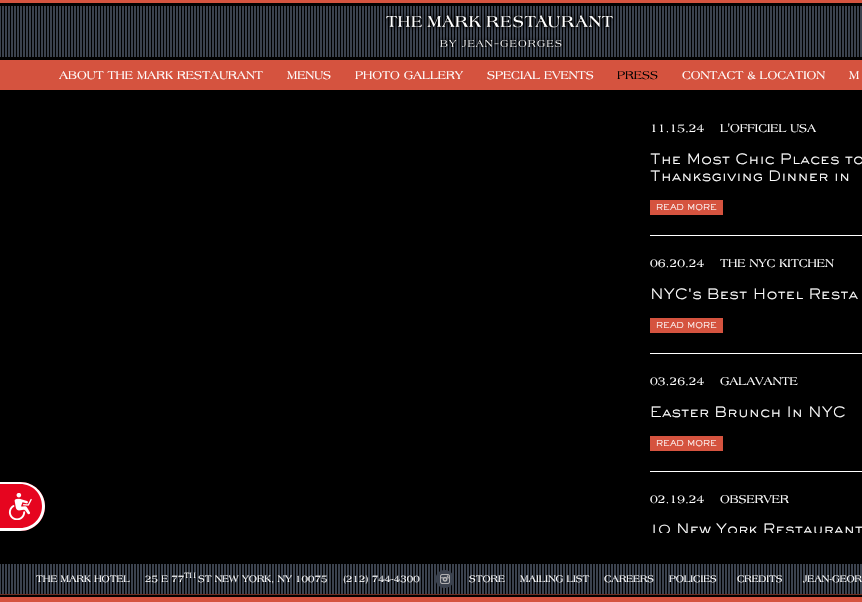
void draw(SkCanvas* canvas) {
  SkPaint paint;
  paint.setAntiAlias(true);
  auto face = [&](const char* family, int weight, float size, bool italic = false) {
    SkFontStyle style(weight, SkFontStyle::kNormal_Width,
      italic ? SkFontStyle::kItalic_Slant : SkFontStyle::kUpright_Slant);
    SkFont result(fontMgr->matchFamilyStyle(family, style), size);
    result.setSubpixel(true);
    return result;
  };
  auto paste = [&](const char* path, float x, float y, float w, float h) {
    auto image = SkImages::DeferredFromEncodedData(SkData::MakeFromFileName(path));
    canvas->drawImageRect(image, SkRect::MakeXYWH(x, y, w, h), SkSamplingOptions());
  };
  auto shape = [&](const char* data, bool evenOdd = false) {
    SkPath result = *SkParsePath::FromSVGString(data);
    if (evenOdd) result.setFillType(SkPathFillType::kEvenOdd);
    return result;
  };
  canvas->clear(0xff000000);
  paint.setColor(0xffe6051f);
  canvas->drawPath(shape("M0 482H20.5C34 482 45 493 45 506.5C45 520 34 531 20.5 531H0Z"), paint);
  paint.setColor(0xffffffff);
  canvas->drawPath(shape("M0 482H20C34 482 45 493 45 506C45 520 34 531 20 531H0ZM0 484H20C33 484 42 494 42 506C42 518 33 528 20 528H0Z", true), paint);
  paste("img/1.png", 8, 493, 24, 27);
  paint.setColor(0xffd5533f);
  canvas->drawRect(SkRect::MakeXYWH(0, 0, 862, 3), paint);
  paste("img/2.png", 0, 6, 862, 51);
  paste("img/3.png", 383, 12, 233, 38);
  {
    const struct { float x, y, w, h; SkColor color; } items[] = {
      {0, 60, 862, 30, 0xffd5533f},
      {650, 235, 212, 1, 0xffffffff},
      {650, 200, 73, 15, 0xffd5533f},
      {650, 353, 212, 1, 0xffffffff},
      {650, 318, 73, 15, 0xffd5533f},
      {650, 471, 212, 1, 0xffffffff},
      {650, 436, 73, 15, 0xffd5533f},
      {0, 597, 862, 5, 0xffd5533f},
    };
    for (auto [x, y, w, h, color] : items) {
      paint.setColor(color);
      canvas->drawRect(SkRect::MakeXYWH(x, y, w, h), paint);
    }
  }
  paste("img/4.png", 0, 564, 862, 30);
  paint.setColor(0xff702d20);
  canvas->drawRect(SkRect::MakeXYWH(0, 594, 862, 1), paint);
  paste("img/5.png", 436, 570, 16, 18);
  auto f0 = face("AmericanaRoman", 400, 12);
  paint.setColor(0xffffffff);
  {
    const struct { const char* s; float x, y; } items[] = {
      {"ABOUT THE MARK RESTAURANT", 59, 79},
      {"MENUS", 287, 79},
      {"PHOTO GALLERY", 355, 79},
      {"SPECIAL EVENTS", 487, 79},
    };
    for (auto [s, x, y] : items) {
      canvas->drawString(s, x, y, f0, paint);
    }
  }
  paint.setColor(0xff000000);
  canvas->drawString("PRESS", 617, 79, f0, paint);
  paint.setColor(0xffffffff);
  {
    const struct { const char* s; float x, y; } items[] = {
      {"CONTACT & LOCATION", 682, 79},
      {"M", 849, 79},
      {"11.15.24", 650, 132},
      {"L'OFFICIEL USA", 720, 132},
    };
    for (auto [s, x, y] : items) {
      canvas->drawString(s, x, y, f0, paint);
    }
  }
  auto f1 = face("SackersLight", 300, 14);
  canvas->drawString("The Most Chic Places to", 650, 164, f1, paint);
  canvas->drawString("Thanksgiving Dinner in", 650, 181, f1, paint);
  auto f2 = face("SackersLight", 300, 8);
  canvas->drawString("READ MORE", 656, 210, f2, paint);
  canvas->drawString("06.20.24", 650, 267, f0, paint);
  canvas->drawString("THE NYC KITCHEN", 720, 267, f0, paint);
  canvas->drawString("NYC's Best Hotel Resta", 650, 299, f1, paint);
  canvas->drawString("READ MORE", 656, 328, f2, paint);
  canvas->drawString("03.26.24", 650, 385, f0, paint);
  canvas->drawString("GALAVANTE", 720, 385, f0, paint);
  canvas->drawString("Easter Brunch In NYC", 650, 417, f1, paint);
  canvas->drawString("READ MORE", 656, 446, f2, paint);
  canvas->drawString("02.19.24", 650, 503, f0, paint);
  canvas->drawString("OBSERVER", 720, 503, f0, paint);
  canvas->save();
  canvas->clipRect(SkRect::MakeXYWH(650, 121, 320, 412));
  canvas->drawString("10 New York Restaurant", 650, 534, f1, paint);
  canvas->restore();
  auto f3 = face("AmericanaRoman", 400, 10);
  canvas->drawString("THE MARK HOTEL", 36, 582, f3, paint);
  canvas->drawString("25 E 77", 145, 582, f3, paint);
  auto f4 = face("AmericanaRoman", 400, 8);
  canvas->drawString("TH", 184, 578, f4, paint);
  {
    const struct { const char* s; float x, y; } items[] = {
      {"ST NEW YORK, NY 10075", 198, 582},
      {"(212) 744-4300", 343, 582},
      {"STORE", 469, 582},
      {"MAILING LIST", 520, 582},
      {"CAREERS", 604, 582},
      {"POLICIES", 669, 582},
      {"CREDITS", 737, 582},
      {"JEAN-GEOR", 803, 582},
    };
    for (auto [s, x, y] : items) {
      canvas->drawString(s, x, y, f3, paint);
    }
  }
}
